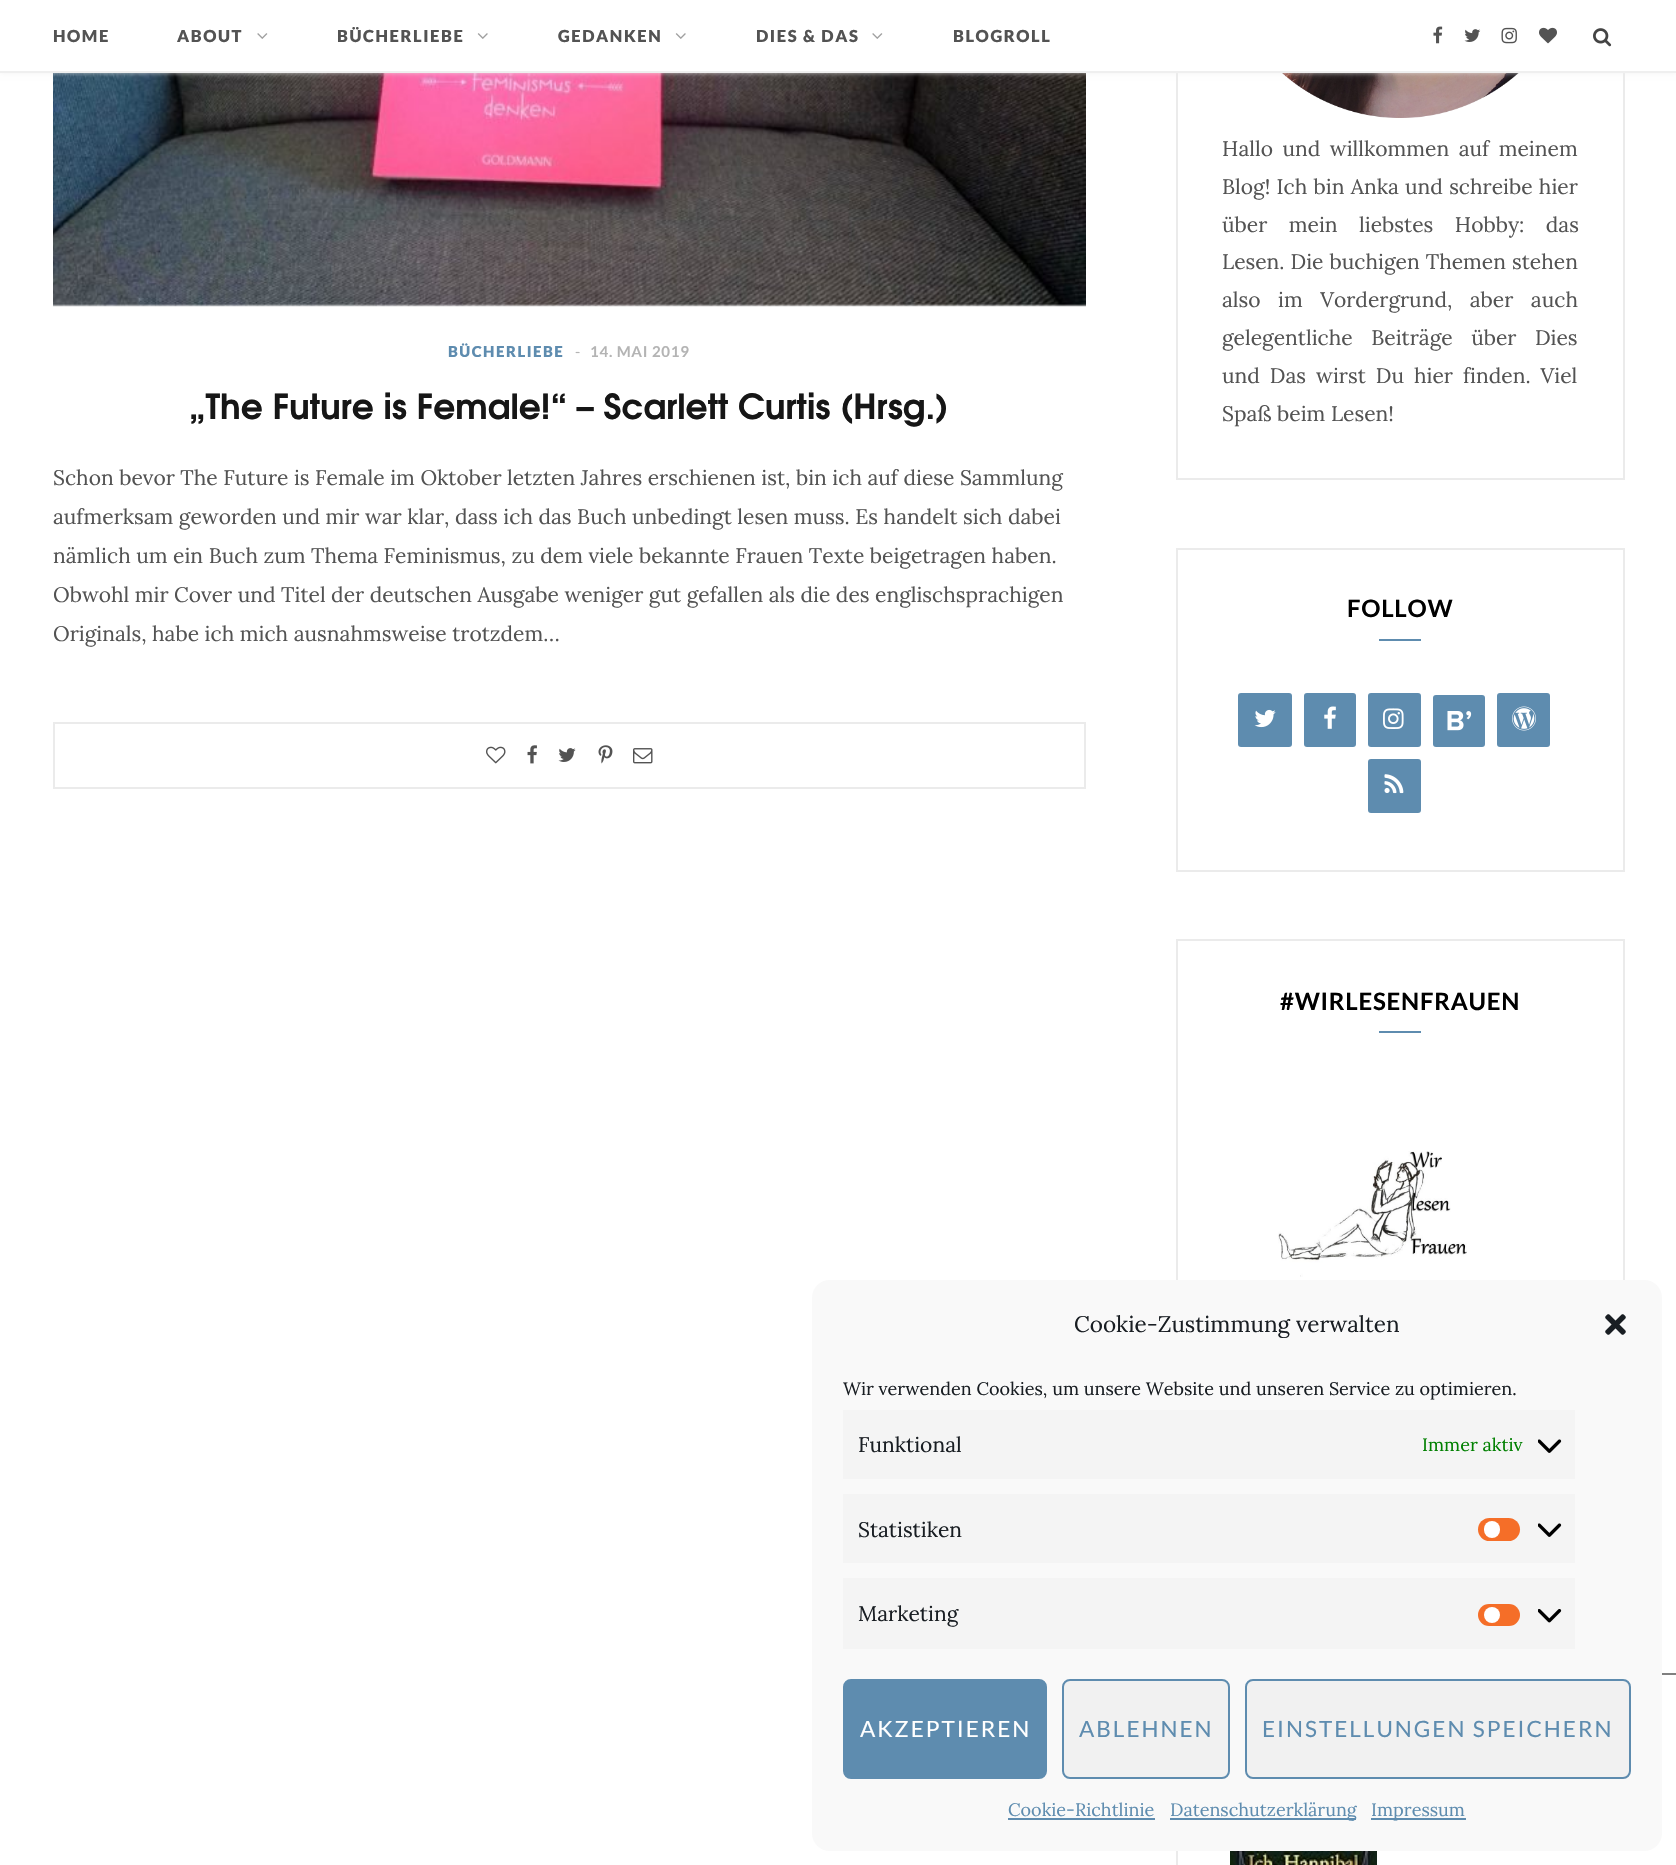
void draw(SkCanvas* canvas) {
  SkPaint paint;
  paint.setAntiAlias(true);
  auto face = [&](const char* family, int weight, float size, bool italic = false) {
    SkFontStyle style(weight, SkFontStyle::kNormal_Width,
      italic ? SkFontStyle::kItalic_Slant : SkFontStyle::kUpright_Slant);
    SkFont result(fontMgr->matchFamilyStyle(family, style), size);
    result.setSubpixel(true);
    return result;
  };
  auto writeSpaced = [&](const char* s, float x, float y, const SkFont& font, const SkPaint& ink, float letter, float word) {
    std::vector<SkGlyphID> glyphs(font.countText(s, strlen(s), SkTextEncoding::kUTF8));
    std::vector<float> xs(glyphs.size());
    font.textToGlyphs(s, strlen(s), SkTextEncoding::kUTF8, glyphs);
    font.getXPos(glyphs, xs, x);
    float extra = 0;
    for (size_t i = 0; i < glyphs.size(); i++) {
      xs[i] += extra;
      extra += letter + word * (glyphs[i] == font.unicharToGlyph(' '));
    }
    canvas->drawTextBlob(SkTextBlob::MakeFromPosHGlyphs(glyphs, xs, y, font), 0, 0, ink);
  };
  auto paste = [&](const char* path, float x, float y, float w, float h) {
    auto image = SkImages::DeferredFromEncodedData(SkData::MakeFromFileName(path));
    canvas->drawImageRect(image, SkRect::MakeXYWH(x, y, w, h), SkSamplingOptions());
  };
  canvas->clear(0xffffffff);
  paste("img/8.png", 53, 73, 1033, 234);
  paint.setStroke(true);
  paint.setStrokeWidth(2);
  paint.setColor(0xffebebeb);
  canvas->drawRect(SkRect::MakeXYWH(1177, -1, 447, 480), paint);
  paste("img/14.png", 1282, 73, 237, 45);
  paint.setStroke(false);
  paint.setColor(0xffeeeeee);
  paint.setMaskFilter(SkMaskFilter::MakeBlur(kNormal_SkBlurStyle, 3));
  canvas->drawRect(SkRect::MakeXYWH(0, 0, 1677, 72), paint);
  paint.setMaskFilter(nullptr);
  paint.setColor(0xffffffff);
  canvas->drawRect(SkRect::MakeXYWH(0, 0, 1676, 71), paint);
  paint.setColor(0xffefefef);
  canvas->drawRect(SkRect::MakeXYWH(0, 71, 1676, 2), paint);
  paste("img/1.png", 257, 33, 11, 6);
  paste("img/2.png", 477, 33, 11, 6);
  paste("img/2.png", 675, 33, 11, 6);
  paste("img/1.png", 872, 33, 11, 6);
  paste("img/3.png", 1433, 26, 10, 18);
  paste("img/4.png", 1464, 29, 17, 13);
  paste("img/5.png", 1501, 27, 16, 17);
  paste("img/6.png", 1539, 27, 18, 17);
  paste("img/7.png", 1593, 28, 19, 19);
  paint.setStroke(true);
  paint.setColor(0xffebebeb);
  canvas->drawRect(SkRect::MakeXYWH(54, 723, 1031, 65), paint);
  paste("img/9.png", 486, 746, 20, 18);
  paste("img/10.png", 527, 745, 10, 19);
  paste("img/11.png", 558, 748, 18, 14);
  paste("img/12.png", 598, 745, 15, 19);
  paste("img/13.png", 633, 748, 20, 16);
  canvas->drawRect(SkRect::MakeXYWH(1177, 549, 447, 322), paint);
  paint.setStroke(false);
  paint.setColor(0xff5e8caf);
  canvas->drawRect(SkRect::MakeXYWH(1379, 639, 42, 2), paint);
  canvas->drawRoundRect(SkRect::MakeXYWH(1238, 693, 54, 54), 3, 3, paint);
  paste("img/15.png", 1254, 709, 22, 19);
  canvas->drawRoundRect(SkRect::MakeXYWH(1304, 693, 52, 54), 3, 3, paint);
  paste("img/16.png", 1324, 706, 12, 23);
  canvas->drawRoundRect(SkRect::MakeXYWH(1368, 693, 53, 54), 3, 3, paint);
  paste("img/17.png", 1383, 708, 21, 21);
  canvas->drawRoundRect(SkRect::MakeXYWH(1433, 695, 52, 52), 3, 3, paint);
  paste("img/18.png", 1447, 711, 25, 20);
  canvas->drawRoundRect(SkRect::MakeXYWH(1497, 693, 53, 54), 3, 3, paint);
  paste("img/19.png", 1512, 706, 24, 25);
  canvas->drawRoundRect(SkRect::MakeXYWH(1368, 759, 53, 54), 3, 3, paint);
  paste("img/20.png", 1384, 774, 20, 20);
  paint.setStroke(true);
  paint.setColor(0xffebebeb);
  canvas->drawRect(SkRect::MakeXYWH(1177, 940, 447, 435), paint);
  paint.setStroke(false);
  paint.setColor(0xff5e8caf);
  canvas->drawRect(SkRect::MakeXYWH(1379, 1031, 42, 2), paint);
  paste("img/21.png", 1278, 1151, 189, 126);
  paint.setStroke(true);
  paint.setColor(0xffebebeb);
  canvas->drawRect(SkRect::MakeXYWH(1177, 1444, 447, 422), paint);
  paint.setStroke(false);
  paint.setColor(0xffffffff);
  canvas->drawRoundRect(SkRect::MakeXYWH(1223, 1590, 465, 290), 15, 15, paint);
  paint.setColor(0xff808080);
  canvas->drawRect(SkRect::MakeXYWH(1662, 1673, 14, 2), paint);
  paste("img/22.png", 1230, 1851, 147, 14);
  paint.setColor(0xfff9f9f9);
  canvas->drawRoundRect(SkRect::MakeXYWH(812, 1280, 850, 571), 18, 18, paint);
  paste("img/23.png", 1605, 1314, 21, 21);
  paint.setColor(0xfff4f4f4);
  canvas->drawRect(SkRect::MakeXYWH(843, 1410, 732, 69), paint);
  paste("img/24.png", 1538, 1439, 24, 14);
  canvas->drawRect(SkRect::MakeXYWH(843, 1494, 732, 69), paint);
  paint.setColor(0xfff56e28);
  canvas->drawRoundRect(SkRect::MakeXYWH(1478, 1518, 42, 23), 11.5f, 11.5f, paint);
  paint.setColor(0xffffffff);
  canvas->drawRoundRect(SkRect::MakeXYWH(1484, 1521, 16, 17), 8, 8, paint);
  paste("img/24.png", 1538, 1523, 24, 14);
  paint.setColor(0xfff4f4f4);
  canvas->drawRect(SkRect::MakeXYWH(843, 1578, 732, 71), paint);
  paint.setColor(0xfff56e28);
  canvas->drawRoundRect(SkRect::MakeXYWH(1478, 1604, 42, 22), 11, 11, paint);
  paint.setColor(0xffffffff);
  canvas->drawCircle(1492, 1615, 8, paint);
  paste("img/25.png", 1538, 1609, 24, 14);
  paint.setColor(0xff5e8caf);
  canvas->drawRoundRect(SkRect::MakeXYWH(844, 1680, 202, 98), 7, 7, paint);
  paint.setStroke(true);
  canvas->drawRoundRect(SkRect::MakeXYWH(844, 1680, 202, 98), 7, 7, paint);
  paint.setStroke(false);
  paint.setColor(0xfff1f1f1);
  canvas->drawRoundRect(SkRect::MakeXYWH(1063, 1680, 166, 98), 7, 7, paint);
  paint.setStroke(true);
  paint.setColor(0xff5e8caf);
  canvas->drawRoundRect(SkRect::MakeXYWH(1063, 1680, 166, 98), 7, 7, paint);
  paint.setStroke(false);
  paint.setColor(0xfff1f1f1);
  canvas->drawRoundRect(SkRect::MakeXYWH(1246, 1680, 384, 98), 7, 7, paint);
  paint.setStroke(true);
  paint.setColor(0xff5e8caf);
  canvas->drawRoundRect(SkRect::MakeXYWH(1246, 1680, 384, 98), 7, 7, paint);
  paint.setStroke(false);
  {
    const struct { float x, y, w, h; SkColor color; } items[] = {
      {1008, 1818, 147, 2, 0xff5e8caf},
      {1170, 1818, 186, 2, 0xff5e8caf},
      {1371, 1818, 95, 2, 0xff5e8caf},
    };
    for (auto [x, y, w, h, color] : items) {
      paint.setColor(color);
      canvas->drawRect(SkRect::MakeXYWH(x, y, w, h), paint);
    }
  }
  auto f0 = face("Lato", 900, 16.5f);
  paint.setColor(0xff535353);
  {
    const struct { const char* s; float x, y; } items[] = {
      {"HOME", 53, 42},
      {"ABOUT", 177, 42},
      {"BÜCHERLIEBE", 337, 42},
      {"GEDANKEN", 558, 42},
      {"DIES & DAS", 756, 42},
      {"BLOGROLL", 953, 42},
    };
    for (auto [s, x, y] : items) {
      writeSpaced(s, x, y, f0, paint, 1.6f, 0);
    }
  }
  auto f1 = face("Lato", 900, 15);
  paint.setColor(0xff5e8caf);
  writeSpaced("BÜCHERLIEBE", 448, 357, f1, paint, 1.5f, 0);
  auto f2 = face("Lato", 400, 15);
  paint.setColor(0xffb4b4b4);
  canvas->drawString("-", 575, 357, f2, paint);
  auto f3 = face("Lato", 700, 15);
  writeSpaced("14. MAI 2019", 590, 357, f3, paint, 0.75f, 0);
  auto f4 = face("TeX Gyre Adventor", 700, 34.5f);
  paint.setColor(0xff161616);
  canvas->drawString("„The Future is Female!“ – Scarlett Curtis (Hrsg.)", 189, 419, f4, paint);
  auto f5 = face("Lora", 400, 21);
  paint.setColor(0xff535353);
  {
    const struct { const char* s; float x, y; } items[] = {
      {"Schon bevor The Future is Female im Oktober letzten Jahres erschienen ist, bin ich auf diese Sammlung", 53, 485},
      {"aufmerksam geworden und mir war klar, dass ich das Buch unbedingt lesen muss. Es handelt sich dabei", 53, 524},
      {"nämlich um ein Buch zum Thema Feminismus, zu dem viele bekannte Frauen Texte beigetragen haben.", 53, 563},
      {"Obwohl mir Cover und Titel der deutschen Ausgabe weniger gut gefallen als die des englischsprachigen", 53, 602},
      {"Originals, habe ich mich ausnahmsweise trotzdem…", 53, 641},
    };
    for (auto [s, x, y] : items) {
      canvas->drawString(s, x, y, f5, paint);
    }
  }
  writeSpaced("Hallo und willkommen auf meinem", 1222, 156, f5, paint, 0, 4);
  writeSpaced("Blog! Ich bin Anka und schreibe hier", 1222, 194, f5, paint, 0, 0.75f);
  writeSpaced("über mein liebstes Hobby: das", 1222, 232, f5, paint, 0, 16);
  writeSpaced("Lesen. Die buchigen Themen stehen", 1222, 269, f5, paint, 0, 0.5f);
  writeSpaced("also im Vordergrund, aber auch", 1222, 307, f5, paint, 0, 12);
  writeSpaced("gelegentliche Beiträge über Dies", 1222, 345, f5, paint, 0, 13);
  writeSpaced("und Das wirst Du hier finden. Viel", 1222, 383, f5, paint, 0, 4.5f);
  canvas->drawString("Spaß beim Lesen!", 1222, 421, f5, paint);
  auto f6 = face("Lato", 700, 24);
  paint.setColor(0xff000000);
  writeSpaced("FOLLOW", 1347, 617, f6, paint, 0.75f, 0);
  writeSpaced("#WIRLESENFRAUEN", 1280, 1010, f6, paint, 0.75f, 0);
  auto f7 = face("Lora", 400, 22.5f);
  paint.setColor(0xff191e23);
  canvas->drawString("Cookie-Zustimmung verwalten", 1074, 1332, f7, paint);
  auto f8 = face("Lora", 400, 18);
  canvas->drawString("Wir verwenden Cookies, um unsere Website und unseren Service zu optimieren.", 843, 1395, f8, paint);
  canvas->drawString("Funktional", 858, 1452, f5, paint);
  paint.setColor(0xff008000);
  canvas->drawString("Immer aktiv", 1422, 1451, f8, paint);
  paint.setColor(0xff191e23);
  canvas->drawString("Statistiken", 858, 1537, f5, paint);
  canvas->drawString("Marketing", 858, 1621, f5, paint);
  auto f9 = face("Lato", 400, 22.5f);
  paint.setColor(0xffffffff);
  writeSpaced("AKZEPTIEREN", 860, 1737, f9, paint, 2, 0);
  paint.setColor(0xff5e8caf);
  writeSpaced("ABLEHNEN", 1079, 1737, f9, paint, 2, 0);
  writeSpaced("EINSTELLUNGEN SPEICHERN", 1262, 1737, f9, paint, 2, 0);
  {
    const struct { const char* s; float x, y; } items[] = {
      {"Cookie-Richtlinie", 1008, 1816},
      {"Datenschutzerklärung", 1170, 1816},
      {"Impressum", 1371, 1816},
    };
    for (auto [s, x, y] : items) {
      canvas->drawString(s, x, y, f8, paint);
    }
  }
}
